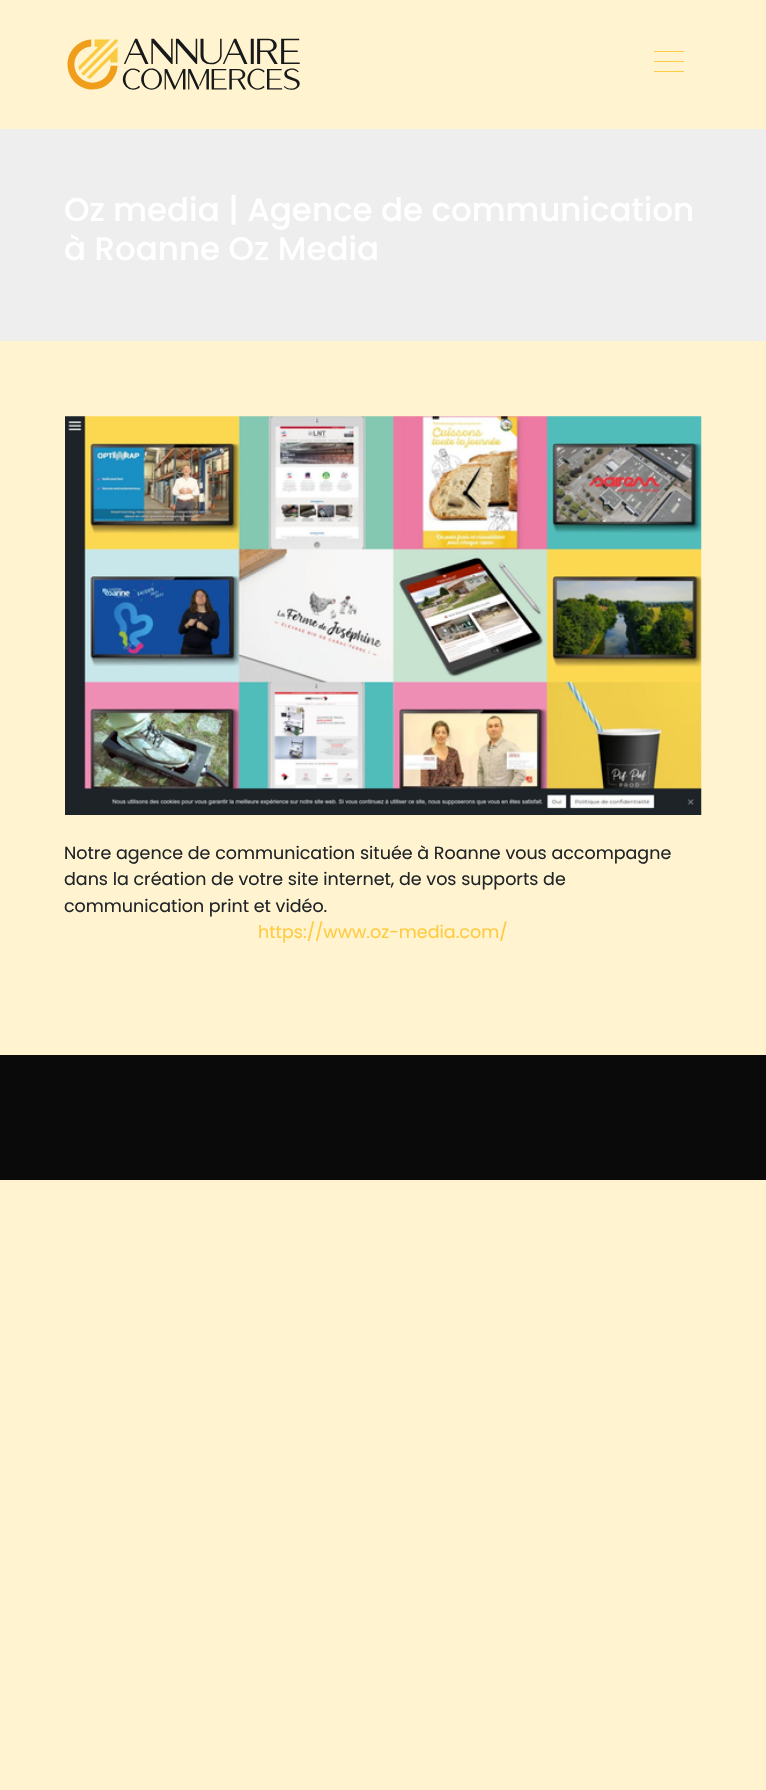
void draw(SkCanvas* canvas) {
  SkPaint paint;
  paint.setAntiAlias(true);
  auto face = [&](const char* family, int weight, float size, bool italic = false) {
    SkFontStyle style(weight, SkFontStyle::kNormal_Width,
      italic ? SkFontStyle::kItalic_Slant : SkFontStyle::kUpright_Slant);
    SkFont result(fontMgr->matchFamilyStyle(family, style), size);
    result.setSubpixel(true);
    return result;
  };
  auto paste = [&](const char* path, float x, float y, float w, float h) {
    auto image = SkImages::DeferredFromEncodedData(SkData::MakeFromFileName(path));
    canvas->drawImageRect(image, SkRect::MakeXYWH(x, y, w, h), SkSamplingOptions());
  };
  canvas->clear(0xfffff4cf);
  paste("img/1.png", 67, 38, 233, 52);
  {
    const struct { float x, y, w, h; SkColor color; } items[] = {
      {654, 51, 30, 1, 0xffffcb42},
      {654, 61, 30, 1, 0xffffcb42},
      {654, 71, 30, 1, 0xffffcb42},
      {0, 129, 766, 212, 0xffeeeeee},
    };
    for (auto [x, y, w, h, color] : items) {
      paint.setColor(color);
      canvas->drawRect(SkRect::MakeXYWH(x, y, w, h), paint);
    }
  }
  paste("img/2.png", 65, 416, 637, 399);
  paint.setColor(0xff0a0a0a);
  canvas->drawRect(SkRect::MakeXYWH(0, 1055, 766, 125), paint);
  auto f0 = face("Poppins", 500, 32.5f);
  paint.setColor(0xffffffff);
  canvas->drawString("Oz media | Agence de communication", 64, 221, f0, paint);
  canvas->drawString("à Roanne Oz Media", 64, 260, f0, paint);
  auto f1 = face("Poppins", 400, 17.5f);
  paint.setColor(0xff212529);
  {
    const struct { const char* s; float x, y; } items[] = {
      {"Notre agence de communication située à Roanne vous accompagne", 64, 859},
      {"dans la création de votre site internet, de vos supports de", 64, 885},
      {"communication print et vidéo.", 64, 912},
    };
    for (auto [s, x, y] : items) {
      canvas->drawString(s, x, y, f1, paint);
    }
  }
  paint.setColor(0xffffcb42);
  canvas->drawString("https://www.oz-media.com/", 258, 938, f1, paint);
}
